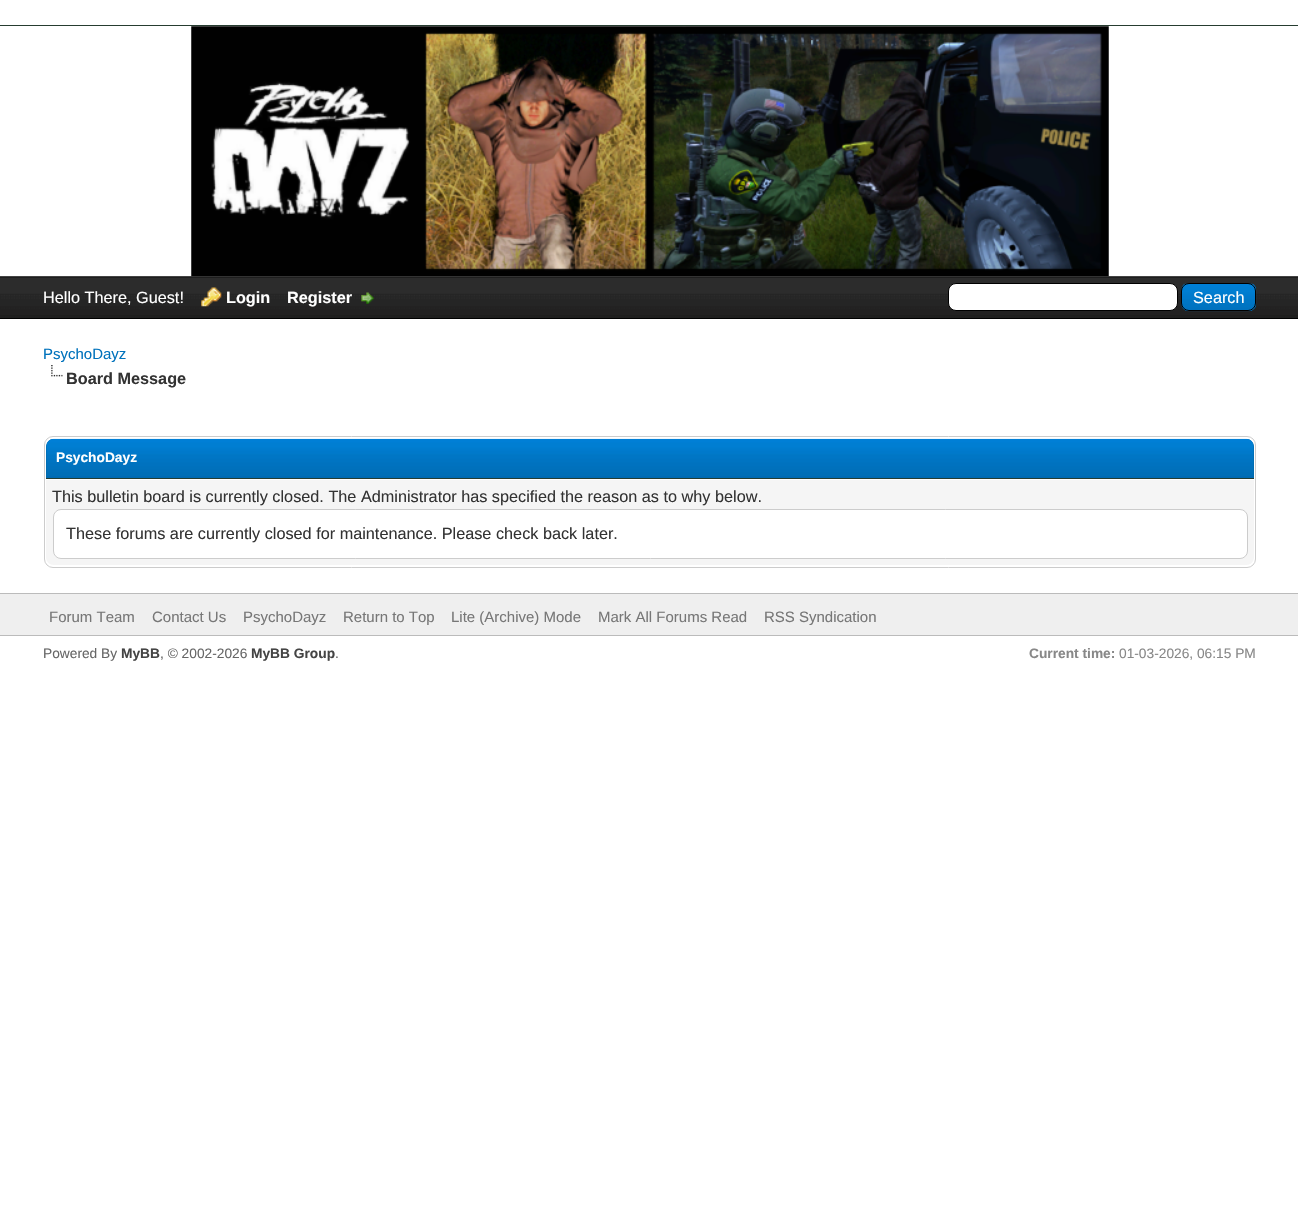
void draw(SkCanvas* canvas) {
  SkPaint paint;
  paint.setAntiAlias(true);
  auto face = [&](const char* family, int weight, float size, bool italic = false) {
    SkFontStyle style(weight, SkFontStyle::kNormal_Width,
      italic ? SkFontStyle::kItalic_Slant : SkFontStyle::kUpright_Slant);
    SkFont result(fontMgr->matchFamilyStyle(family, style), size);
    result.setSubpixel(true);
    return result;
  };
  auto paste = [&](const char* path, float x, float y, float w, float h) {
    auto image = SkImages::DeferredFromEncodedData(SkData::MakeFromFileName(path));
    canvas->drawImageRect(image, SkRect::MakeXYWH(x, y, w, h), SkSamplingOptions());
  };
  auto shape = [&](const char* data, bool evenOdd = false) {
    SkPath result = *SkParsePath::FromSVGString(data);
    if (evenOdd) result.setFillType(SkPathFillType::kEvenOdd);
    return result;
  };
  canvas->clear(0xffffffff);
  paint.setColor(0xff263c30);
  canvas->drawRect(SkRect::MakeXYWH(0, 25, 1298, 1), paint);
  paint.setColor(0xff444444);
  canvas->drawRect(SkRect::MakeXYWH(0, 276, 1298, 1), paint);
  paste("img/1.png", 191, 26, 918, 251);
  paint.setColor(0xff0f0f0f);
  canvas->drawRect(SkRect::MakeXYWH(0, 277, 1298, 1), paint);
  paste("img/2.png", 0, 277, 1298, 41);
  paint.setColor(0xff000000);
  canvas->drawRect(SkRect::MakeXYWH(0, 318, 1298, 1), paint);
  paste("img/3.png", 201, 287, 21, 20);
  paste("img/4.png", 361, 292, 13, 12);
  paint.setColor(0xffffffff);
  canvas->drawRoundRect(SkRect::MakeXYWH(948.5f, 283.5f, 229, 27), 7.5f, 7.5f, paint);
  paint.setStroke(true);
  paint.setStrokeWidth(1);
  paint.setColor(0xff000000);
  canvas->drawRoundRect(SkRect::MakeXYWH(948.5f, 283.5f, 229, 27), 7.5f, 7.5f, paint);
  paste("img/5.png", 1181, 283, 76, 29);
  canvas->drawRoundRect(SkRect::MakeXYWH(1181.5f, 283.5f, 74, 27), 7.5f, 7.5f, paint);
  paste("img/6.png", 51, 365, 12, 12);
  paint.setColor(0xffcccccc);
  canvas->drawRoundRect(SkRect::MakeXYWH(44.5f, 436.5f, 1211, 131), 8.5f, 8.5f, paint);
  paint.setStroke(false);
  paint.setColor(0xff0066a2);
  canvas->drawPath(shape("M54 439H1246C1250.5 439 1254 442.5 1254 447V479H46V447C46 442.5 49.5 439 54 439Z"), paint);
  paste("img/7.png", 46, 438, 1208, 40);
  paint.setColor(0xff263c30);
  canvas->drawRect(SkRect::MakeXYWH(46, 478, 1208, 1), paint);
  paint.setColor(0xfff5f5f5);
  canvas->drawPath(shape("M46 479H1254V557C1254 561.5 1250.5 565 1246 565H54C49.5 565 46 561.5 46 557Z"), paint);
  paint.setColor(0xffffffff);
  canvas->drawRect(SkRect::MakeXYWH(46, 479, 1208, 1), paint);
  canvas->drawRoundRect(SkRect::MakeXYWH(53.5f, 509.5f, 1194, 49), 7.5f, 7.5f, paint);
  paint.setStroke(true);
  paint.setColor(0xffcccccc);
  canvas->drawRoundRect(SkRect::MakeXYWH(53.5f, 509.5f, 1194, 49), 7.5f, 7.5f, paint);
  paint.setStroke(false);
  {
    const struct { float x, y, w, h; SkColor color; } items[] = {
      {0, 594, 1298, 41, 0xffefefef},
      {0, 593, 1298, 1, 0xffbbbbbb},
      {0, 635, 1298, 1, 0xffbbbbbb},
    };
    for (auto [x, y, w, h, color] : items) {
      paint.setColor(color);
      canvas->drawRect(SkRect::MakeXYWH(x, y, w, h), paint);
    }
  }
  auto f0 = face("Liberation Sans", 400, 16.25f);
  paint.setColor(0xffffffff);
  canvas->drawString("Hello There, Guest!", 43, 303, f0, paint);
  auto f1 = face("Liberation Sans", 700, 16.25f);
  canvas->drawString("Login", 226, 303, f1, paint);
  canvas->drawString("Register", 287, 303, f1, paint);
  canvas->drawString("Search", 1193, 303, f0, paint);
  auto f2 = face("Liberation Sans", 400, 15);
  paint.setColor(0xff0072bc);
  canvas->drawString("PsychoDayz", 43, 359, f2, paint);
  paint.setColor(0xff333333);
  canvas->drawString("Board Message", 66, 384, f1, paint);
  auto f3 = face("Liberation Sans", 700, 13.75f);
  paint.setColor(0xffffffff);
  canvas->drawString("PsychoDayz", 56, 462, f3, paint);
  paint.setColor(0xff333333);
  canvas->drawString("This bulletin board is currently closed. The Administrator has specified the reason as to why below.", 52, 502, f0, paint);
  canvas->drawString("These forums are currently closed for maintenance. Please check back later.", 66, 539, f0, paint);
  paint.setColor(0xff777777);
  {
    const struct { const char* s; float x, y; } items[] = {
      {"Forum Team", 49, 622},
      {"Contact Us", 152, 622},
      {"PsychoDayz", 243, 622},
      {"Return to Top", 343, 622},
      {"Lite (Archive) Mode", 451, 622},
      {"Mark All Forums Read", 598, 622},
      {"RSS Syndication", 764, 622},
    };
    for (auto [s, x, y] : items) {
      canvas->drawString(s, x, y, f2, paint);
    }
  }
  auto f4 = face("Liberation Sans", 400, 13.75f);
  paint.setColor(0xff666666);
  canvas->drawString("Powered By", 43, 658, f4, paint);
  paint.setColor(0xff444444);
  canvas->drawString("MyBB", 121, 658, f3, paint);
  paint.setColor(0xff666666);
  canvas->drawString(", © 2002-2026", 160, 658, f4, paint);
  paint.setColor(0xff444444);
  canvas->drawString("MyBB Group", 251, 658, f3, paint);
  paint.setColor(0xff666666);
  canvas->drawString(".", 335, 658, f4, paint);
  paint.setColor(0xff888888);
  canvas->drawString("Current time:", 1029, 658, f3, paint);
  canvas->drawString("01-03-2026, 06:15 PM", 1119, 658, f4, paint);
}
